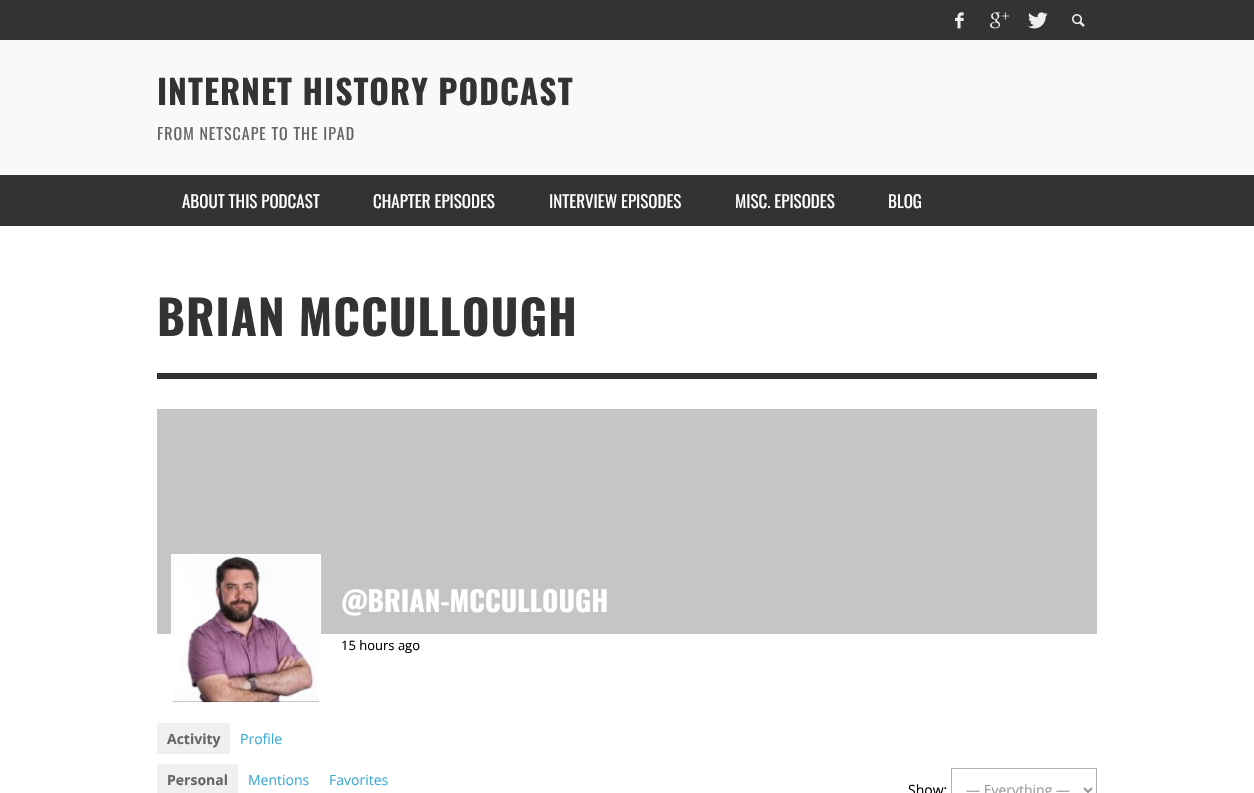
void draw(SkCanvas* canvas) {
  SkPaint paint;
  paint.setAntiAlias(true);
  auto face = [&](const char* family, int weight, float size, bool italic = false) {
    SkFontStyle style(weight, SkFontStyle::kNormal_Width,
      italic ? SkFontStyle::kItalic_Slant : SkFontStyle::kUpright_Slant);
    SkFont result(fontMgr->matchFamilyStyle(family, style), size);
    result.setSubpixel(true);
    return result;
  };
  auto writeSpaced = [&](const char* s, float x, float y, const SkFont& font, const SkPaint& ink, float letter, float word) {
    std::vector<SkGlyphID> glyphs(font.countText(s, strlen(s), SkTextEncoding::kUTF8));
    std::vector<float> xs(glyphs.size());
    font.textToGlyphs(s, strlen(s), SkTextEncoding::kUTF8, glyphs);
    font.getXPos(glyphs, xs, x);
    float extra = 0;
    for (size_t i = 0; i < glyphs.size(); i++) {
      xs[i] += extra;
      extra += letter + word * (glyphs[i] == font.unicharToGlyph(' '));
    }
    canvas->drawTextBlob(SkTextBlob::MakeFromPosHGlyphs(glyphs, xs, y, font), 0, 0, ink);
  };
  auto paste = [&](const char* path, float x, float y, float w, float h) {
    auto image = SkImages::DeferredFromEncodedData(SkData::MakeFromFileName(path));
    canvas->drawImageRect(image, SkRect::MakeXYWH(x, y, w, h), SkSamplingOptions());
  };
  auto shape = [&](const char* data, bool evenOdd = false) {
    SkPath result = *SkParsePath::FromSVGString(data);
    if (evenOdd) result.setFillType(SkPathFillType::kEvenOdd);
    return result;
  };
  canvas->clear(0xffffffff);
  paint.setColor(0xff333333);
  canvas->drawRect(SkRect::MakeXYWH(0, 0, 1254, 40), paint);
  paste("img/1.png", 955, 12, 9, 17);
  paste("img/2.png", 990, 12, 19, 17);
  paste("img/3.png", 1028, 12, 20, 17);
  paste("img/4.png", 1072, 14, 13, 13);
  {
    const struct { float x, y, w, h; SkColor color; } items[] = {
      {0, 40, 1254, 135, 0xfff9f9f9},
      {0, 175, 1254, 51, 0xff333333},
      {157, 373, 940, 6, 0xff333333},
      {157, 409, 940, 225, 0xffc5c5c5},
    };
    for (auto [x, y, w, h, color] : items) {
      paint.setColor(color);
      canvas->drawRect(SkRect::MakeXYWH(x, y, w, h), paint);
    }
  }
  paint.setStroke(true);
  paint.setStrokeWidth(2);
  paint.setColor(0xffffffff);
  canvas->drawRect(SkRect::MakeXYWH(172, 555, 148, 148), paint);
  paste("img/5.png", 173, 556, 146, 147);
  paint.setStroke(false);
  paint.setColor(0xfff0f0f0);
  canvas->drawRect(SkRect::MakeXYWH(157, 723, 73, 31), paint);
  canvas->drawRect(SkRect::MakeXYWH(157, 764, 81, 29), paint);
  paint.setStroke(true);
  paint.setStrokeWidth(1);
  paint.setColor(0xffb0b0b0);
  canvas->drawRect(SkRect::MakeXYWH(951.5f, 768.5f, 145, 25), paint);
  paint.setStrokeWidth(2);
  paint.setColor(0xff999999);
  canvas->drawPath(shape("M1084 788L1088 792L1092 788"), paint);
  auto f0 = face("Oswald", 700, 33.6f);
  paint.setStroke(false);
  paint.setColor(0xff333333);
  writeSpaced("INTERNET HISTORY PODCAST", 157, 105, f0, paint, 1, 0);
  auto f1 = face("Oswald", 400, 16);
  paint.setColor(0xff666666);
  writeSpaced("FROM NETSCAPE TO THE IPAD", 157, 140, f1, paint, 1, 0);
  auto f2 = face("Oswald", 400, 17);
  paint.setColor(0xffffffff);
  {
    const struct { const char* s; float x, y; } items[] = {
      {"ABOUT THIS PODCAST", 182, 208},
      {"CHAPTER EPISODES", 373, 208},
      {"INTERVIEW EPISODES", 549, 208},
      {"MISC. EPISODES", 735, 208},
      {"BLOG", 888, 208},
    };
    for (auto [s, x, y] : items) {
      canvas->drawString(s, x, y, f2, paint);
    }
  }
  auto f3 = face("Oswald", 700, 47.5f);
  paint.setColor(0xff333333);
  writeSpaced("BRIAN MCCULLOUGH", 157, 336, f3, paint, 1, 0);
  auto f4 = face("Oswald", 700, 28);
  paint.setColor(0xffffffff);
  canvas->drawString("@BRIAN-MCCULLOUGH", 341, 612, f4, paint);
  auto f5 = face("Open Sans", 400, 13);
  paint.setColor(0xff000000);
  canvas->drawString("15 hours ago", 341, 650, f5, paint);
  auto f6 = face("Open Sans", 700, 14);
  paint.setColor(0xff666666);
  canvas->drawString("Activity", 167, 744, f6, paint);
  auto f7 = face("Open Sans", 400, 14);
  paint.setColor(0xff3facd6);
  canvas->drawString("Profile", 240, 744, f7, paint);
  paint.setColor(0xff666666);
  canvas->drawString("Personal", 167, 785, f6, paint);
  paint.setColor(0xff3facd6);
  canvas->drawString("Mentions", 248, 785, f7, paint);
  canvas->drawString("Favorites", 329, 785, f7, paint);
  paint.setColor(0xff000000);
  canvas->drawString("Show:", 908, 795, f7, paint);
  paint.setColor(0xff999999);
  canvas->drawString("— Everything —", 966, 795, f7, paint);
}
